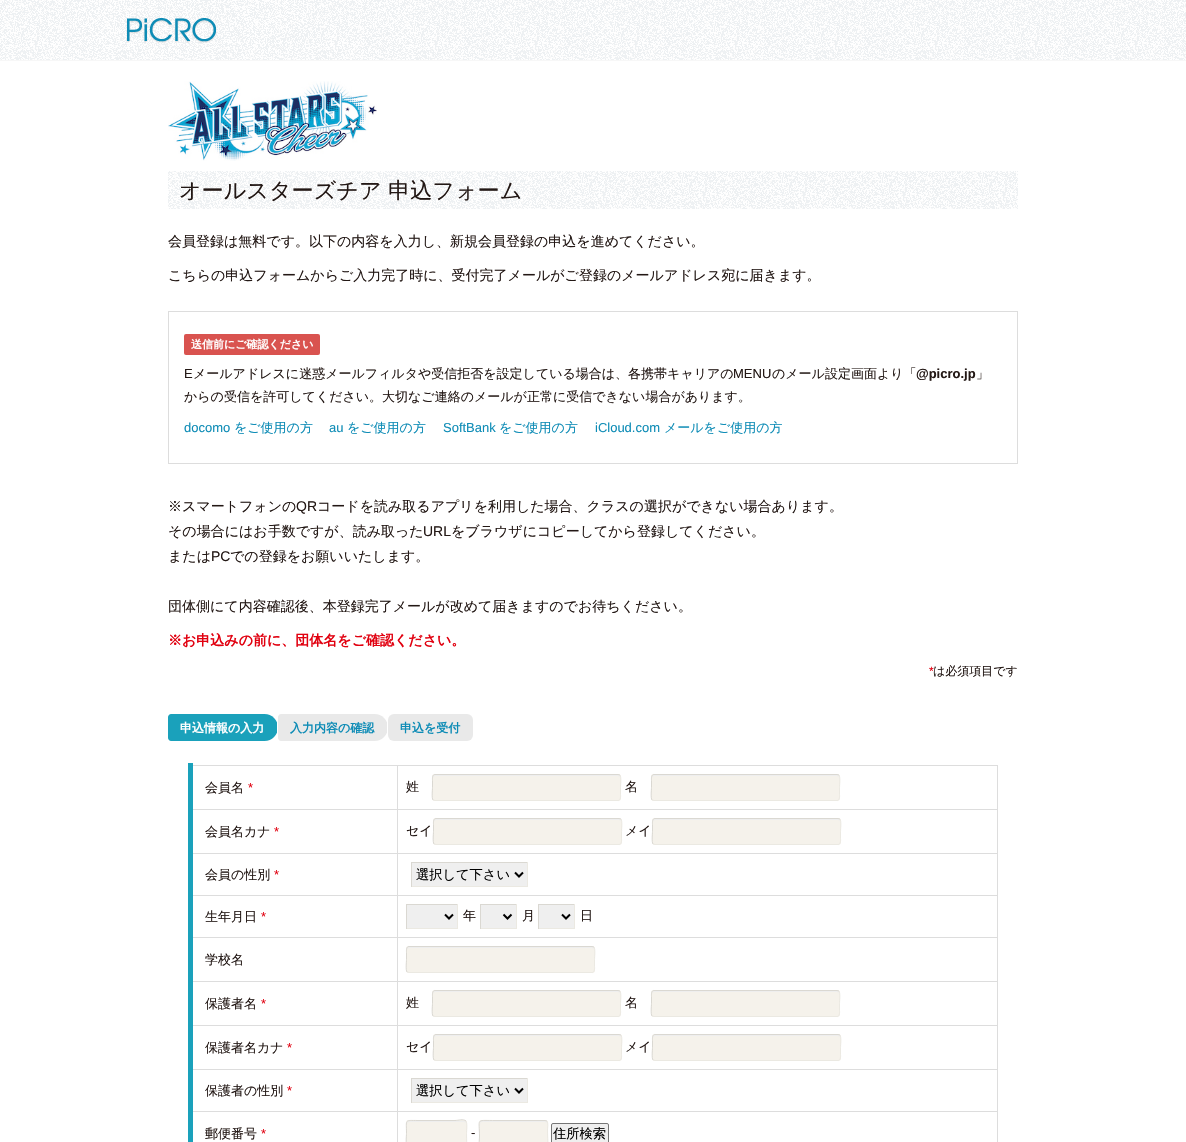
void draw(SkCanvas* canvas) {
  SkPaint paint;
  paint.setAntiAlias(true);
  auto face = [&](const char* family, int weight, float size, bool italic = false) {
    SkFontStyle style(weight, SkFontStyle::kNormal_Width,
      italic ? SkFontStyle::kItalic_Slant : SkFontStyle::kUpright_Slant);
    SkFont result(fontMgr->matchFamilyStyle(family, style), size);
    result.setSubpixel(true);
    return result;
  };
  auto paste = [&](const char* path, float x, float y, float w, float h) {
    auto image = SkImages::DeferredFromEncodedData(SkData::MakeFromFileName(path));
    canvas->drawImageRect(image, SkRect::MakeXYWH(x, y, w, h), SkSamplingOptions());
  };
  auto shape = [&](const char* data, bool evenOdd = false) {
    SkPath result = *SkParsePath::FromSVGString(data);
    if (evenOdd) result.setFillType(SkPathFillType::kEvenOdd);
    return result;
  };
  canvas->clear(0xffffffff);
  paste("img/1.png", 0, 0, 1186, 60);
  paint.setColor(0xfff7f7f7);
  canvas->drawRect(SkRect::MakeXYWH(0, 60, 1186, 1), paint);
  paste("img/2.png", 119, 0, 200, 46);
  paste("img/3.png", 168, 81, 209, 80);
  paste("img/4.png", 168, 171, 850, 38);
  paint.setStroke(true);
  paint.setStrokeWidth(1);
  paint.setColor(0xffdddddd);
  canvas->drawRect(SkRect::MakeXYWH(168.5f, 311.5f, 849, 152), paint);
  paint.setStroke(false);
  paint.setColor(0xffd9534f);
  canvas->drawRoundRect(SkRect::MakeXYWH(184, 334, 136, 21), 2, 2, paint);
  paint.setColor(0xff1aa1bb);
  canvas->drawPath(shape("M171 714H264.5C272 714 278 720 278 727.5C278 735 272 741 264.5 741H171C169.5 741 168 739.5 168 738V717C168 715.5 169.5 714 171 714Z"), paint);
  paint.setColor(0xffffffff);
  canvas->drawRect(SkRect::MakeXYWH(277, 721, 1, 13), paint);
  paint.setColor(0xffe9e9e9);
  canvas->drawPath(shape("M281 714H374.5C382 714 388 720 388 727.5C388 735 382 741 374.5 741H281C279.5 741 278 739.5 278 738V717C278 715.5 279.5 714 281 714Z"), paint);
  paint.setColor(0xffffffff);
  canvas->drawRect(SkRect::MakeXYWH(387, 721, 1, 13), paint);
  paint.setColor(0xffe9e9e9);
  canvas->drawRoundRect(SkRect::MakeXYWH(388, 714, 85, 27), 6, 6, paint);
  {
    const struct { float x, y, w, h; SkColor color; } items[] = {
      {397, 765, 601, 1, 0xffdddddd},
      {397, 809, 601, 1, 0xffdddddd},
      {397, 853, 601, 1, 0xffdddddd},
      {397, 895, 601, 1, 0xffdddddd},
      {397, 937, 601, 1, 0xffdddddd},
      {397, 981, 601, 1, 0xffdddddd},
      {397, 1025, 601, 1, 0xffdddddd},
      {397, 1069, 601, 1, 0xffdddddd},
      {397, 1111, 601, 1, 0xffdddddd},
      {397, 1111, 1, 31, 0xffdddddd},
      {190, 1111, 208, 1, 0xffdddddd},
      {397, 1069, 1, 43, 0xffdddddd},
      {190, 1069, 208, 1, 0xffdddddd},
      {397, 1025, 1, 45, 0xffdddddd},
      {190, 1025, 208, 1, 0xffdddddd},
      {397, 981, 1, 45, 0xffdddddd},
      {190, 981, 208, 1, 0xffdddddd},
      {397, 937, 1, 45, 0xffdddddd},
      {190, 937, 208, 1, 0xffdddddd},
      {397, 895, 1, 43, 0xffdddddd},
      {190, 895, 208, 1, 0xffdddddd},
      {397, 853, 1, 43, 0xffdddddd},
      {190, 853, 208, 1, 0xffdddddd},
      {397, 809, 1, 45, 0xffdddddd},
      {190, 809, 208, 1, 0xffdddddd},
      {397, 765, 1, 45, 0xffdddddd},
      {190, 765, 208, 1, 0xffdddddd},
      {997, 1111, 1, 31, 0xffdddddd},
      {997, 1069, 1, 43, 0xffdddddd},
      {997, 1025, 1, 45, 0xffdddddd},
      {997, 981, 1, 45, 0xffdddddd},
      {997, 937, 1, 45, 0xffdddddd},
      {997, 895, 1, 43, 0xffdddddd},
      {997, 853, 1, 43, 0xffdddddd},
      {997, 809, 1, 45, 0xffdddddd},
      {997, 765, 1, 45, 0xffdddddd},
    };
    for (auto [x, y, w, h, color] : items) {
      paint.setColor(color);
      canvas->drawRect(SkRect::MakeXYWH(x, y, w, h), paint);
    }
  }
  paint.setColor(0xfff5f2eb);
  canvas->drawRoundRect(SkRect::MakeXYWH(432, 774, 189, 27), 3, 3, paint);
  paint.setColor(0xffeeeeee);
  canvas->drawPath(shape("M435 776H618C619 776 620 777 620 778V777C620 776 619 775 618 775H435C434 775 433 776 433 777V778C433 777 434 776 435 776Z"), paint);
  paint.setStroke(true);
  paint.setColor(0xffebe9e2);
  canvas->drawPath(shape("M620 775C621.5 777 620.5 785 620.5 787.5V794.5C620.5 796.5 621 800.5 618 800.5H435L433 800"), paint);
  paint.setColor(0xffdad8d2);
  canvas->drawPath(shape("M433 800C431.5 798 432.5 790 432.5 787.5V780.5C432.5 778.5 432 774.5 435 774.5H618L620 775"), paint);
  paint.setStroke(false);
  paint.setColor(0xfff5f2eb);
  canvas->drawRoundRect(SkRect::MakeXYWH(651, 774, 189, 27), 3, 3, paint);
  paint.setColor(0xffeeeeee);
  canvas->drawPath(shape("M654 776H837C838 776 839 777 839 778V777C839 776 838 775 837 775H654C653 775 652 776 652 777V778C652 777 653 776 654 776Z"), paint);
  paint.setStroke(true);
  paint.setColor(0xffebe9e2);
  canvas->drawPath(shape("M839 775C840.5 777 839.5 785 839.5 787.5V794.5C839.5 796.5 840 800.5 837 800.5H654L652 800"), paint);
  paint.setColor(0xffdad8d2);
  canvas->drawPath(shape("M652 800C650.5 798 651.5 790 651.5 787.5V780.5C651.5 778.5 651 774.5 654 774.5H837L839 775"), paint);
  paint.setStroke(false);
  paint.setColor(0xfff5f2eb);
  canvas->drawRoundRect(SkRect::MakeXYWH(433, 818, 189, 27), 3, 3, paint);
  paint.setColor(0xffeeeeee);
  canvas->drawPath(shape("M436 820H619C620 820 621 821 621 822V821C621 820 620 819 619 819H436C435 819 434 820 434 821V822C434 821 435 820 436 820Z"), paint);
  paint.setStroke(true);
  paint.setColor(0xffebe9e2);
  canvas->drawPath(shape("M621 819C622.5 821 621.5 829 621.5 831.5V838.5C621.5 840.5 622 844.5 619 844.5H436L434 844"), paint);
  paint.setColor(0xffdad8d2);
  canvas->drawPath(shape("M434 844C432.5 842 433.5 834 433.5 831.5V824.5C433.5 822.5 433 818.5 436 818.5H619L621 819"), paint);
  paint.setStroke(false);
  paint.setColor(0xfff5f2eb);
  canvas->drawRoundRect(SkRect::MakeXYWH(652, 818, 189, 27), 3, 3, paint);
  paint.setColor(0xffeeeeee);
  canvas->drawPath(shape("M655 820H838C839 820 840 821 840 822V821C840 820 839 819 838 819H655C654 819 653 820 653 821V822C653 821 654 820 655 820Z"), paint);
  paint.setStroke(true);
  paint.setColor(0xffebe9e2);
  canvas->drawPath(shape("M840 819C841.5 821 840.5 829 840.5 831.5V838.5C840.5 840.5 841 844.5 838 844.5H655L653 844"), paint);
  paint.setColor(0xffdad8d2);
  canvas->drawPath(shape("M653 844C651.5 842 652.5 834 652.5 831.5V824.5C652.5 822.5 652 818.5 655 818.5H838L840 819"), paint);
  paint.setStroke(false);
  {
    const struct { float x, y, w, h; SkColor color; } items[] = {
      {412, 863, 115, 23, 0xffefefef},
      {411, 862, 117, 1, 0xffdad8d2},
      {527, 862, 1, 25, 0xffebe9e2},
      {411, 886, 117, 1, 0xffebe9e2},
      {411, 862, 1, 25, 0xffdad8d2},
    };
    for (auto [x, y, w, h, color] : items) {
      paint.setColor(color);
      canvas->drawRect(SkRect::MakeXYWH(x, y, w, h), paint);
    }
  }
  paint.setStroke(true);
  paint.setStrokeWidth(2);
  paint.setColor(0xff000000);
  canvas->drawPath(shape("M515 872.5L519 876.5L523 872.5"), paint);
  paint.setStroke(false);
  {
    const struct { float x, y, w, h; SkColor color; } items[] = {
      {407, 905, 50, 23, 0xffefefef},
      {406, 904, 52, 1, 0xffdad8d2},
      {457, 904, 1, 25, 0xffebe9e2},
      {406, 928, 52, 1, 0xffebe9e2},
      {406, 904, 1, 25, 0xffdad8d2},
    };
    for (auto [x, y, w, h, color] : items) {
      paint.setColor(color);
      canvas->drawRect(SkRect::MakeXYWH(x, y, w, h), paint);
    }
  }
  paint.setStroke(true);
  paint.setColor(0xff000000);
  canvas->drawPath(shape("M445 914.5L449 918.5L453 914.5"), paint);
  paint.setStroke(false);
  {
    const struct { float x, y, w, h; SkColor color; } items[] = {
      {481, 905, 35, 23, 0xffefefef},
      {480, 904, 37, 1, 0xffdad8d2},
      {516, 904, 1, 25, 0xffebe9e2},
      {480, 928, 37, 1, 0xffebe9e2},
      {480, 904, 1, 25, 0xffdad8d2},
    };
    for (auto [x, y, w, h, color] : items) {
      paint.setColor(color);
      canvas->drawRect(SkRect::MakeXYWH(x, y, w, h), paint);
    }
  }
  paint.setStroke(true);
  paint.setColor(0xff000000);
  canvas->drawPath(shape("M503.5 914.5L507.5 918.5L511.5 914.5"), paint);
  paint.setStroke(false);
  {
    const struct { float x, y, w, h; SkColor color; } items[] = {
      {539, 905, 35, 23, 0xffefefef},
      {538, 904, 37, 1, 0xffdad8d2},
      {574, 904, 1, 25, 0xffebe9e2},
      {538, 928, 37, 1, 0xffebe9e2},
      {538, 904, 1, 25, 0xffdad8d2},
    };
    for (auto [x, y, w, h, color] : items) {
      paint.setColor(color);
      canvas->drawRect(SkRect::MakeXYWH(x, y, w, h), paint);
    }
  }
  paint.setStroke(true);
  paint.setColor(0xff000000);
  canvas->drawPath(shape("M562 914.5L566 918.5L570 914.5"), paint);
  paint.setStroke(false);
  paint.setColor(0xfff5f2eb);
  canvas->drawRoundRect(SkRect::MakeXYWH(406, 946, 189, 27), 3, 3, paint);
  paint.setColor(0xffeeeeee);
  canvas->drawPath(shape("M409 948H592C593 948 594 949 594 950V949C594 948 593 947 592 947H409C408 947 407 948 407 949V950C407 949 408 948 409 948Z"), paint);
  paint.setStroke(true);
  paint.setStrokeWidth(1);
  paint.setColor(0xffebe9e2);
  canvas->drawPath(shape("M594 947C595.5 949 594.5 957 594.5 959.5V966.5C594.5 968.5 595 972.5 592 972.5H409L407 972"), paint);
  paint.setColor(0xffdad8d2);
  canvas->drawPath(shape("M407 972C405.5 970 406.5 962 406.5 959.5V952.5C406.5 950.5 406 946.5 409 946.5H592L594 947"), paint);
  paint.setStroke(false);
  paint.setColor(0xfff5f2eb);
  canvas->drawRoundRect(SkRect::MakeXYWH(432, 990, 189, 27), 3, 3, paint);
  paint.setColor(0xffeeeeee);
  canvas->drawPath(shape("M435 992H618C619 992 620 993 620 994V993C620 992 619 991 618 991H435C434 991 433 992 433 993V994C433 993 434 992 435 992Z"), paint);
  paint.setStroke(true);
  paint.setColor(0xffebe9e2);
  canvas->drawPath(shape("M620 991C621.5 993 620.5 1001 620.5 1003.5V1010.5C620.5 1012.5 621 1016.5 618 1016.5H435L433 1016"), paint);
  paint.setColor(0xffdad8d2);
  canvas->drawPath(shape("M433 1016C431.5 1014 432.5 1006 432.5 1003.5V996.5C432.5 994.5 432 990.5 435 990.5H618L620 991"), paint);
  paint.setStroke(false);
  paint.setColor(0xfff5f2eb);
  canvas->drawRoundRect(SkRect::MakeXYWH(651, 990, 189, 27), 3, 3, paint);
  paint.setColor(0xffeeeeee);
  canvas->drawPath(shape("M654 992H837C838 992 839 993 839 994V993C839 992 838 991 837 991H654C653 991 652 992 652 993V994C652 993 653 992 654 992Z"), paint);
  paint.setStroke(true);
  paint.setColor(0xffebe9e2);
  canvas->drawPath(shape("M839 991C840.5 993 839.5 1001 839.5 1003.5V1010.5C839.5 1012.5 840 1016.5 837 1016.5H654L652 1016"), paint);
  paint.setColor(0xffdad8d2);
  canvas->drawPath(shape("M652 1016C650.5 1014 651.5 1006 651.5 1003.5V996.5C651.5 994.5 651 990.5 654 990.5H837L839 991"), paint);
  paint.setStroke(false);
  paint.setColor(0xfff5f2eb);
  canvas->drawRoundRect(SkRect::MakeXYWH(433, 1034, 189, 27), 3, 3, paint);
  paint.setColor(0xffeeeeee);
  canvas->drawPath(shape("M436 1036H619C620 1036 621 1037 621 1038V1037C621 1036 620 1035 619 1035H436C435 1035 434 1036 434 1037V1038C434 1037 435 1036 436 1036Z"), paint);
  paint.setStroke(true);
  paint.setColor(0xffebe9e2);
  canvas->drawPath(shape("M621 1035C622.5 1037 621.5 1045 621.5 1047.5V1054.5C621.5 1056.5 622 1060.5 619 1060.5H436L434 1060"), paint);
  paint.setColor(0xffdad8d2);
  canvas->drawPath(shape("M434 1060C432.5 1058 433.5 1050 433.5 1047.5V1040.5C433.5 1038.5 433 1034.5 436 1034.5H619L621 1035"), paint);
  paint.setStroke(false);
  paint.setColor(0xfff5f2eb);
  canvas->drawRoundRect(SkRect::MakeXYWH(652, 1034, 189, 27), 3, 3, paint);
  paint.setColor(0xffeeeeee);
  canvas->drawPath(shape("M655 1036H838C839 1036 840 1037 840 1038V1037C840 1036 839 1035 838 1035H655C654 1035 653 1036 653 1037V1038C653 1037 654 1036 655 1036Z"), paint);
  paint.setStroke(true);
  paint.setColor(0xffebe9e2);
  canvas->drawPath(shape("M840 1035C841.5 1037 840.5 1045 840.5 1047.5V1054.5C840.5 1056.5 841 1060.5 838 1060.5H655L653 1060"), paint);
  paint.setColor(0xffdad8d2);
  canvas->drawPath(shape("M653 1060C651.5 1058 652.5 1050 652.5 1047.5V1040.5C652.5 1038.5 652 1034.5 655 1034.5H838L840 1035"), paint);
  paint.setStroke(false);
  {
    const struct { float x, y, w, h; SkColor color; } items[] = {
      {412, 1079, 115, 23, 0xffefefef},
      {411, 1078, 117, 1, 0xffdad8d2},
      {527, 1078, 1, 25, 0xffebe9e2},
      {411, 1102, 117, 1, 0xffebe9e2},
      {411, 1078, 1, 25, 0xffdad8d2},
    };
    for (auto [x, y, w, h, color] : items) {
      paint.setColor(color);
      canvas->drawRect(SkRect::MakeXYWH(x, y, w, h), paint);
    }
  }
  paint.setStroke(true);
  paint.setStrokeWidth(2);
  paint.setColor(0xff000000);
  canvas->drawPath(shape("M515 1088.5L519 1092.5L523 1088.5"), paint);
  paint.setStroke(false);
  paint.setColor(0xff1aa1bb);
  canvas->drawRect(SkRect::MakeXYWH(188, 763, 5, 379), paint);
  paint.setColor(0xfff5f2eb);
  canvas->drawRoundRect(SkRect::MakeXYWH(406, 1120, 61, 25), 3, 3, paint);
  paint.setColor(0xffeeeeee);
  canvas->drawPath(shape("M409 1122H464L466 1123C466 1122 465 1121 464 1121H409C408 1121 407 1122 407 1123V1125C407 1123 408 1122 409 1122ZM407 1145V1142Z", true), paint);
  paint.setStroke(true);
  paint.setStrokeWidth(1);
  paint.setColor(0xffebe9e2);
  canvas->drawPath(shape("M466 1121C467.5 1123 466.5 1131 466.5 1133.5C466.5 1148 469 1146.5 455 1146.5H418C414.5 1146.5 410 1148.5 407 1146"), paint);
  paint.setColor(0xffdad8d2);
  canvas->drawPath(shape("M407 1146C405.5 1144 406.5 1136 406.5 1133.5C406.5 1119 404 1120.5 418 1120.5H455C458.5 1120.5 463 1118.5 466 1121"), paint);
  paint.setStroke(false);
  paint.setColor(0xfff5f2eb);
  canvas->drawRoundRect(SkRect::MakeXYWH(479, 1120, 69, 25), 3, 3, paint);
  paint.setColor(0xffeeeeee);
  canvas->drawPath(shape("M482 1122H545L547 1123C547 1122 546 1121 545 1121H482C481 1121 480 1122 480 1123V1125C480 1123 481 1122 482 1122ZM480 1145V1142Z", true), paint);
  paint.setStroke(true);
  paint.setColor(0xffebe9e2);
  canvas->drawPath(shape("M547 1121C548.5 1123 547.5 1128 547.5 1130C547.5 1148.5 551.5 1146.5 534.5 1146.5H482L480 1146"), paint);
  paint.setColor(0xffdad8d2);
  canvas->drawPath(shape("M480 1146C478.5 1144 479.5 1139 479.5 1137C479.5 1118.5 475.5 1120.5 492.5 1120.5H545L547 1121"), paint);
  paint.setStroke(false);
  paint.setColor(0xffefefef);
  canvas->drawRoundRect(SkRect::MakeXYWH(551.5f, 1123.5f, 57, 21), 1.5f, 1.5f, paint);
  paint.setStroke(true);
  paint.setColor(0xff767676);
  canvas->drawRoundRect(SkRect::MakeXYWH(551.5f, 1123.5f, 57, 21), 1.5f, 1.5f, paint);
  auto f0 = face("WenQuanYi Zen Hei", 500, 22.1f);
  paint.setStroke(false);
  paint.setColor(0xff231815);
  canvas->drawString("オールスターズチア 申込フォーム", 179, 198, f0, paint);
  auto f1 = face("WenQuanYi Zen Hei", 500, 14);
  canvas->drawString("会員登録は無料です。以下の内容を入力し、新規会員登録の申込を進めてください。", 168, 246, f1, paint);
  canvas->drawString("こちらの申込フォームからご入力完了時に、受付完了メールがご登録のメールアドレス宛に届きます。", 168, 280, f1, paint);
  auto f2 = face("WenQuanYi Zen Hei", 700, 11);
  paint.setColor(0xffffffff);
  canvas->drawString("送信前にご確認ください", 191, 348, f2, paint);
  auto f3 = face("Liberation Sans", 400, 13);
  paint.setColor(0xff231815);
  canvas->drawString("E", 184, 378, f3, paint);
  auto f4 = face("WenQuanYi Zen Hei", 500, 13);
  canvas->drawString("メールアドレスに迷惑メールフィルタや受信拒否を設定している場合は、各携帯キャリアの", 193, 378, f4, paint);
  canvas->drawString("MENU", 733, 378, f3, paint);
  canvas->drawString("のメール設定画面より「", 772, 378, f4, paint);
  auto f5 = face("Liberation Sans", 700, 13);
  canvas->drawString("@picro.jp", 916, 378, f5, paint);
  canvas->drawString("」", 976, 378, f4, paint);
  canvas->drawString("からの受信を許可してください。大切なご連絡のメールが正常に受信できない場合があります。", 184, 401, f4, paint);
  paint.setColor(0xff0e8cb6);
  canvas->drawString("docomo", 184, 432, f3, paint);
  canvas->drawString("をご使用の方", 234, 432, f4, paint);
  canvas->drawString("au", 329, 432, f3, paint);
  canvas->drawString("をご使用の方", 347, 432, f4, paint);
  canvas->drawString("SoftBank", 443, 432, f3, paint);
  canvas->drawString("をご使用の方", 499, 432, f4, paint);
  canvas->drawString("iCloud.com", 595, 432, f3, paint);
  canvas->drawString("メールをご使用の方", 664, 432, f4, paint);
  paint.setColor(0xff231815);
  canvas->drawString("※スマートフォンの", 168, 511, f1, paint);
  auto f6 = face("Liberation Sans", 400, 14);
  canvas->drawString("QR", 296, 511, f6, paint);
  canvas->drawString("コードを読み取るアプリを利用した場合、クラスの選択ができない場合あります。", 317, 511, f1, paint);
  canvas->drawString("その場合にはお手数ですが、読み取った", 168, 536, f1, paint);
  canvas->drawString("URL", 423, 536, f6, paint);
  canvas->drawString("をブラウザにコピーしてから登録してください。", 451, 536, f1, paint);
  canvas->drawString("または", 168, 561, f1, paint);
  canvas->drawString("PC", 211, 561, f6, paint);
  canvas->drawString("での登録をお願いいたします。", 230, 561, f1, paint);
  canvas->drawString("団体側にて内容確認後、本登録完了メールが改めて届きますのでお待ちください。", 168, 611, f1, paint);
  auto f7 = face("WenQuanYi Zen Hei", 700, 14);
  paint.setColor(0xffe1000f);
  canvas->drawString("※お申込みの前に、団体名をご確認ください。", 168, 645, f7, paint);
  auto f8 = face("Liberation Sans", 400, 12);
  canvas->drawString("*", 929, 675, f8, paint);
  auto f9 = face("WenQuanYi Zen Hei", 500, 12);
  paint.setColor(0xff231815);
  canvas->drawString("は必須項目です", 933, 675, f9, paint);
  auto f10 = face("WenQuanYi Zen Hei", 700, 12);
  paint.setColor(0xffffffff);
  canvas->drawString("申込情報の入力", 180, 732, f10, paint);
  paint.setColor(0xff0e8cb6);
  canvas->drawString("入力内容の確認", 290, 732, f10, paint);
  canvas->drawString("申込を受付", 400, 732, f10, paint);
  paint.setColor(0xff231815);
  canvas->drawString("会員名", 205, 792, f4, paint);
  paint.setColor(0xffe1000f);
  canvas->drawString("*", 248, 792, f3, paint);
  paint.setColor(0xff231815);
  {
    const struct { const char* s; float x, y; } items[] = {
      {"姓", 406, 791},
      {"名", 625, 791},
      {"会員名カナ", 205, 836},
    };
    for (auto [s, x, y] : items) {
      canvas->drawString(s, x, y, f4, paint);
    }
  }
  paint.setColor(0xffe1000f);
  canvas->drawString("*", 274, 836, f3, paint);
  paint.setColor(0xff231815);
  {
    const struct { const char* s; float x, y; } items[] = {
      {"セイ", 406, 835},
      {"メイ", 625, 835},
      {"会員の性別", 205, 879},
    };
    for (auto [s, x, y] : items) {
      canvas->drawString(s, x, y, f4, paint);
    }
  }
  paint.setColor(0xffe1000f);
  canvas->drawString("*", 274, 879, f3, paint);
  auto f11 = face("WenQuanYi Zen Hei", 500, 13.25f);
  paint.setColor(0xff000000);
  canvas->drawString("選択して下さい", 416, 879, f11, paint);
  paint.setColor(0xff231815);
  canvas->drawString("生年月日", 205, 921, f4, paint);
  paint.setColor(0xffe1000f);
  canvas->drawString("*", 261, 921, f3, paint);
  paint.setColor(0xff231815);
  {
    const struct { const char* s; float x, y; } items[] = {
      {"年", 463, 920},
      {"月", 522, 920},
      {"日", 580, 920},
      {"学校名", 205, 964},
      {"保護者名", 205, 1008},
    };
    for (auto [s, x, y] : items) {
      canvas->drawString(s, x, y, f4, paint);
    }
  }
  paint.setColor(0xffe1000f);
  canvas->drawString("*", 261, 1008, f3, paint);
  paint.setColor(0xff231815);
  {
    const struct { const char* s; float x, y; } items[] = {
      {"姓", 406, 1007},
      {"名", 625, 1007},
      {"保護者名カナ", 205, 1052},
    };
    for (auto [s, x, y] : items) {
      canvas->drawString(s, x, y, f4, paint);
    }
  }
  paint.setColor(0xffe1000f);
  canvas->drawString("*", 287, 1052, f3, paint);
  paint.setColor(0xff231815);
  {
    const struct { const char* s; float x, y; } items[] = {
      {"セイ", 406, 1051},
      {"メイ", 625, 1051},
      {"保護者の性別", 205, 1095},
    };
    for (auto [s, x, y] : items) {
      canvas->drawString(s, x, y, f4, paint);
    }
  }
  paint.setColor(0xffe1000f);
  canvas->drawString("*", 287, 1095, f3, paint);
  paint.setColor(0xff000000);
  canvas->drawString("選択して下さい", 416, 1095, f11, paint);
  paint.setColor(0xff231815);
  canvas->drawString("郵便番号", 205, 1138, f4, paint);
  paint.setColor(0xffe1000f);
  canvas->drawString("*", 261, 1138, f3, paint);
  paint.setColor(0xff231815);
  canvas->drawString("-", 471, 1137, f3, paint);
  paint.setColor(0xff000000);
  canvas->drawString("住所検索", 553, 1138, f11, paint);
}
